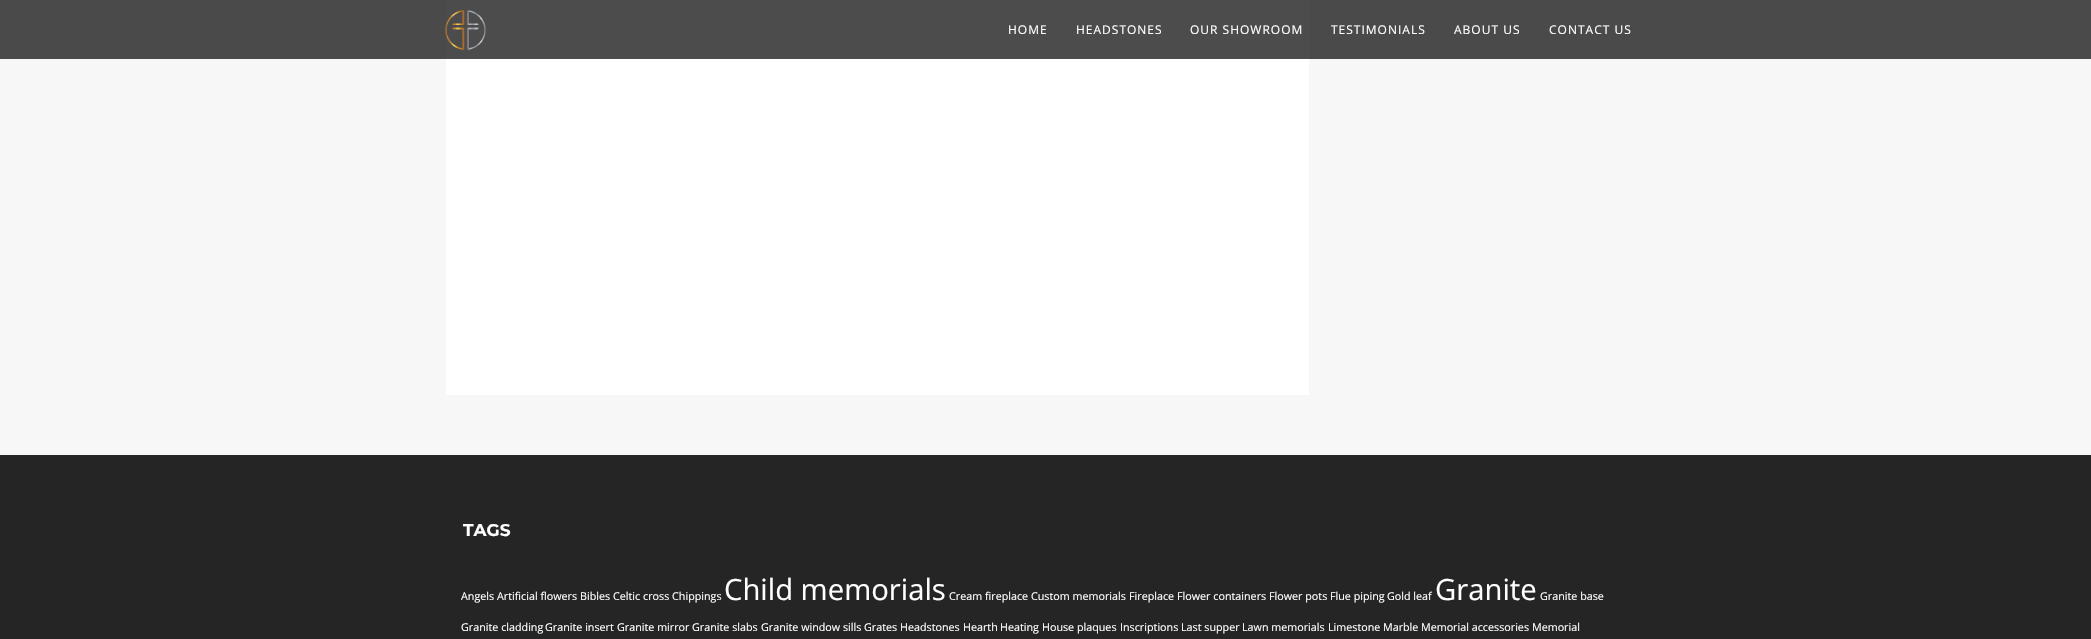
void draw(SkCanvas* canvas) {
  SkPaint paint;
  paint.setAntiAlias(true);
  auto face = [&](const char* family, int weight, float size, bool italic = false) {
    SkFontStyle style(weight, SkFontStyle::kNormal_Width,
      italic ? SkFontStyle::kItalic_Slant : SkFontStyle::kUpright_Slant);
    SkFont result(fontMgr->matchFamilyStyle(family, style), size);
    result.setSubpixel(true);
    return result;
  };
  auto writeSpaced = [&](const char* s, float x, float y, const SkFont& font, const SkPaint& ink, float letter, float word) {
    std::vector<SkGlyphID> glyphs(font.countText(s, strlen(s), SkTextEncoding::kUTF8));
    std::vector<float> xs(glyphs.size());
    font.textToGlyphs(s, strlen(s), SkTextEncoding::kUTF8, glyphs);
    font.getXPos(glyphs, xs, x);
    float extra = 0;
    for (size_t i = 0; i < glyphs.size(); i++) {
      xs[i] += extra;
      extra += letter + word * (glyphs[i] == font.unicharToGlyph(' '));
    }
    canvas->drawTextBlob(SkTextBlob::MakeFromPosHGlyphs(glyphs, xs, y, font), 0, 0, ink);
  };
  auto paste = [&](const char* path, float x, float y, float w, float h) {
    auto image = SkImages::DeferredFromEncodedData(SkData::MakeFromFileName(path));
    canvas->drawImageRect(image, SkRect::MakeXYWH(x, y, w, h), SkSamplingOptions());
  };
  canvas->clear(0xfff7f7f7);
  paint.setColor(0xffffffff);
  canvas->drawRect(SkRect::MakeXYWH(446, 0, 863, 395), paint);
  paint.setColor(0xb3000000);
  canvas->drawRect(SkRect::MakeXYWH(0, 0, 2091, 59), paint);
  paste("img/1.png", 445, 10, 41, 40);
  paint.setColor(0xff252525);
  canvas->drawRect(SkRect::MakeXYWH(0, 455, 2091, 184), paint);
  auto f0 = face("Open Sans", 400, 12);
  paint.setColor(0xffffffff);
  {
    const struct { const char* s; float x, y; } items[] = {
      {"HOME", 1008, 34},
      {"HEADSTONES", 1076, 34},
      {"OUR SHOWROOM", 1190, 34},
      {"TESTIMONIALS", 1331, 34},
      {"ABOUT US", 1454, 34},
      {"CONTACT US", 1549, 34},
    };
    for (auto [s, x, y] : items) {
      writeSpaced(s, x, y, f0, paint, 1, 0);
    }
  }
  auto f1 = face("Montserrat", 700, 17);
  canvas->drawString("TAGS", 463, 536, f1, paint);
  auto f2 = face("Open Sans", 400, 10.75f);
  {
    const struct { const char* s; float x, y; } items[] = {
      {"Angels", 461, 600},
      {"Artificial flowers", 497, 600},
      {"Bibles", 580, 600},
      {"Celtic cross Chippings", 613, 600},
    };
    for (auto [s, x, y] : items) {
      canvas->drawString(s, x, y, f2, paint);
    }
  }
  auto f3 = face("Open Sans", 400, 29.25f);
  canvas->drawString("Child memorials", 724, 600, f3, paint);
  {
    const struct { const char* s; float x, y; } items[] = {
      {"Cream fireplace", 949, 600},
      {"Custom memorials", 1031, 600},
      {"Fireplace", 1129, 600},
      {"Flower containers", 1177, 600},
      {"Flower pots", 1269, 600},
      {"Flue piping", 1330, 600},
      {"Gold leaf", 1387, 600},
    };
    for (auto [s, x, y] : items) {
      canvas->drawString(s, x, y, f2, paint);
    }
  }
  canvas->drawString("Granite", 1435, 600, f3, paint);
  {
    const struct { const char* s; float x, y; } items[] = {
      {"Granite base", 1540, 600},
      {"Granite cladding", 461, 631},
      {"Granite insert", 545, 631},
      {"Granite mirror", 617, 631},
      {"Granite slabs", 692, 631},
      {"Granite window sills", 761, 631},
      {"Grates", 864, 631},
      {"Headstones", 900, 631},
      {"Hearth", 963, 631},
      {"Heating", 1000, 631},
      {"House plaques", 1042, 631},
      {"Inscriptions", 1120, 631},
      {"Last supper", 1181, 631},
      {"Lawn memorials", 1242, 631},
      {"Limestone", 1328, 631},
      {"Marble", 1383, 631},
      {"Memorial accessories", 1421, 631},
      {"Memorial", 1532, 631},
    };
    for (auto [s, x, y] : items) {
      canvas->drawString(s, x, y, f2, paint);
    }
  }
}
